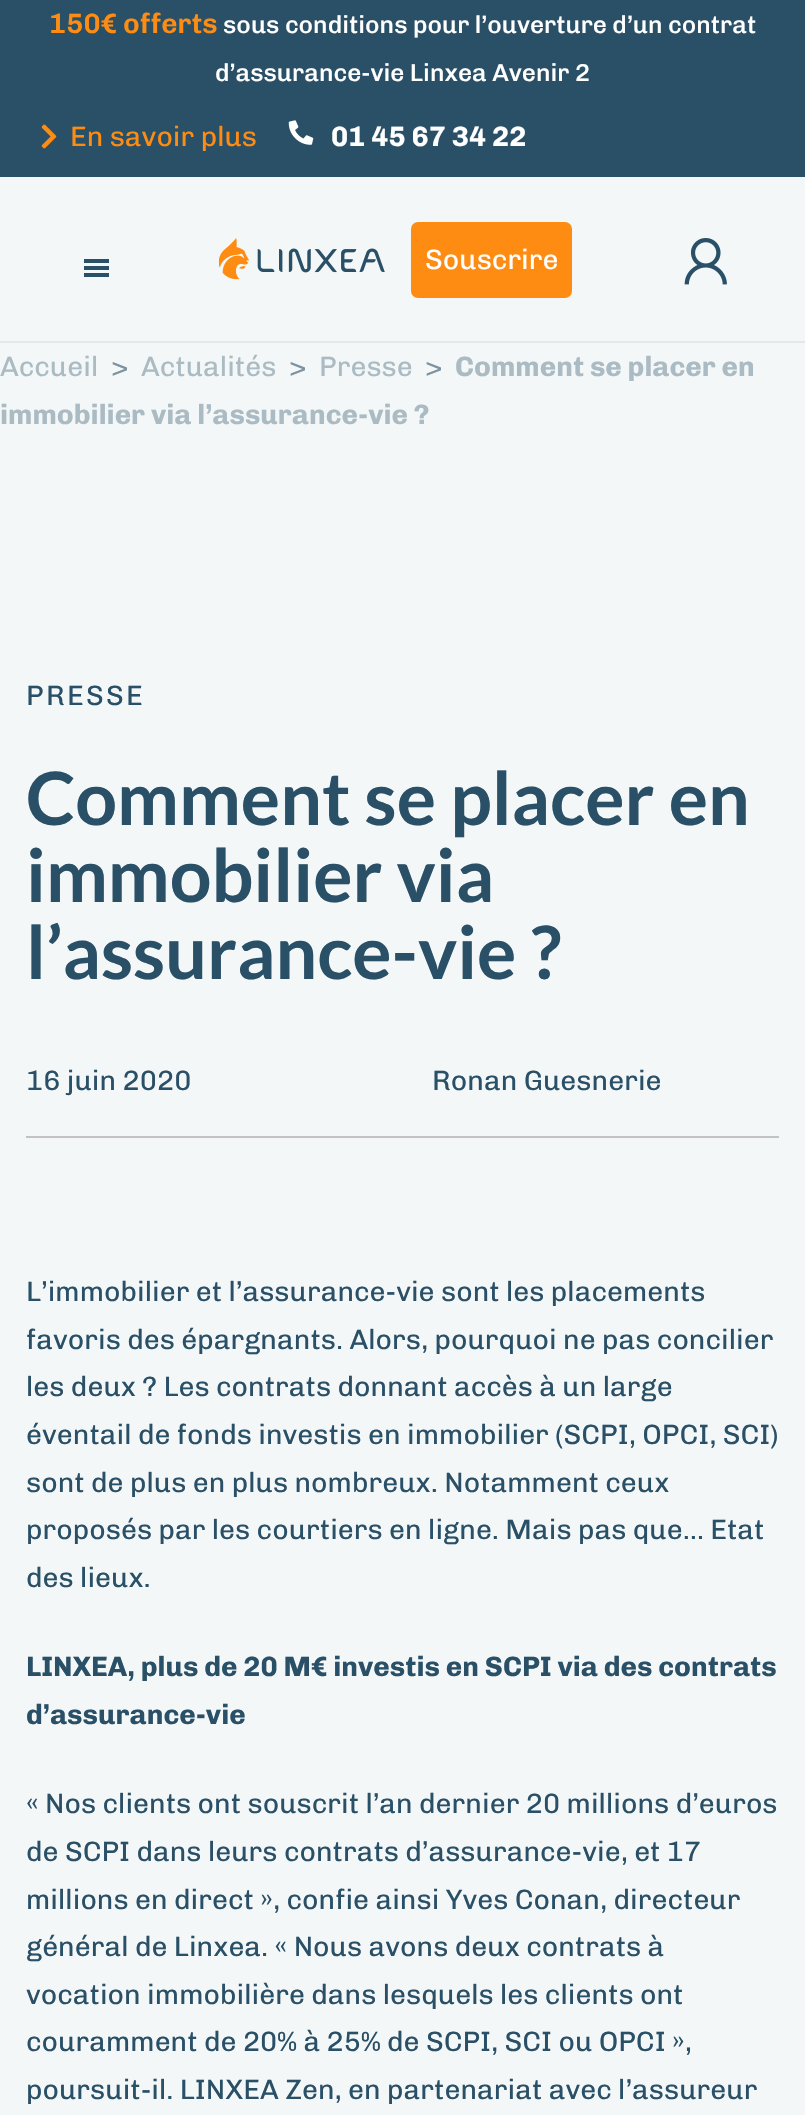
void draw(SkCanvas* canvas) {
  SkPaint paint;
  paint.setAntiAlias(true);
  auto face = [&](const char* family, int weight, float size, bool italic = false) {
    SkFontStyle style(weight, SkFontStyle::kNormal_Width,
      italic ? SkFontStyle::kItalic_Slant : SkFontStyle::kUpright_Slant);
    SkFont result(fontMgr->matchFamilyStyle(family, style), size);
    result.setSubpixel(true);
    return result;
  };
  auto writeSpaced = [&](const char* s, float x, float y, const SkFont& font, const SkPaint& ink, float letter, float word) {
    std::vector<SkGlyphID> glyphs(font.countText(s, strlen(s), SkTextEncoding::kUTF8));
    std::vector<float> xs(glyphs.size());
    font.textToGlyphs(s, strlen(s), SkTextEncoding::kUTF8, glyphs);
    font.getXPos(glyphs, xs, x);
    float extra = 0;
    for (size_t i = 0; i < glyphs.size(); i++) {
      xs[i] += extra;
      extra += letter + word * (glyphs[i] == font.unicharToGlyph(' '));
    }
    canvas->drawTextBlob(SkTextBlob::MakeFromPosHGlyphs(glyphs, xs, y, font), 0, 0, ink);
  };
  auto paste = [&](const char* path, float x, float y, float w, float h) {
    auto image = SkImages::DeferredFromEncodedData(SkData::MakeFromFileName(path));
    canvas->drawImageRect(image, SkRect::MakeXYWH(x, y, w, h), SkSamplingOptions());
  };
  canvas->clear(0xfff4f7f7);
  paint.setColor(0xff2a5067);
  canvas->drawRect(SkRect::MakeXYWH(0, 0, 805, 177), paint);
  paste("img/1.png", 41, 124, 16, 25);
  paste("img/2.png", 288, 120, 26, 25);
  {
    const struct { float x, y, w, h; SkColor color; } items[] = {
      {0, 341, 805, 2, 0xffe5e8e8},
      {84, 259, 25, 4, 0xff2a5067},
      {84, 266, 25, 4, 0xff2a5067},
      {84, 273, 25, 4, 0xff2a5067},
    };
    for (auto [x, y, w, h, color] : items) {
      paint.setColor(color);
      canvas->drawRect(SkRect::MakeXYWH(x, y, w, h), paint);
    }
  }
  paste("img/3.png", 219, 238, 166, 42);
  paint.setColor(0xffff8c12);
  canvas->drawRoundRect(SkRect::MakeXYWH(411, 222, 161, 76), 7, 7, paint);
  paste("img/4.png", 684, 238, 43, 47);
  paint.setColor(0xffc3c3c3);
  canvas->drawRect(SkRect::MakeXYWH(26, 1136, 753, 2), paint);
  auto f0 = face("Chivo", 600, 28);
  paint.setColor(0xffff8c12);
  canvas->drawString("150€ offerts", 49, 33, f0, paint);
  auto f1 = face("Chivo", 500, 24.5f);
  paint.setColor(0xffffffff);
  canvas->drawString("sous conditions pour l’ouverture d’un contrat", 223, 33, f1, paint);
  canvas->drawString("d’assurance-vie Linxea Avenir 2", 215, 81, f1, paint);
  auto f2 = face("Chivo", 400, 28);
  paint.setColor(0xffff8c12);
  canvas->drawString("En savoir plus", 70, 146, f2, paint);
  auto f3 = face("Chivo", 700, 28);
  paint.setColor(0xffffffff);
  canvas->drawString("01 45 67 34 22", 331, 146, f3, paint);
  canvas->drawString("Souscrire", 425, 269, f2, paint);
  paint.setColor(0xffabbbc3);
  canvas->drawString("Accueil", 0, 376, f2, paint);
  paint.setColor(0xff7b93a1);
  canvas->drawString(">", 111, 376, f2, paint);
  paint.setColor(0xffabbbc3);
  canvas->drawString("Actualités", 141, 376, f2, paint);
  paint.setColor(0xff7b93a1);
  canvas->drawString(">", 289, 376, f2, paint);
  paint.setColor(0xffabbbc3);
  canvas->drawString("Presse", 319, 376, f2, paint);
  paint.setColor(0xff7b93a1);
  canvas->drawString(">", 425, 376, f2, paint);
  paint.setColor(0xffabbbc3);
  canvas->drawString("Comment se placer en", 455, 376, f3, paint);
  canvas->drawString("immobilier via l’assurance-vie ?", 0, 424, f3, paint);
  paint.setColor(0xff2a5067);
  writeSpaced("PRESSE", 26, 705, f2, paint, 2.25f, 0);
  auto f4 = face("Lato", 700, 73.5f);
  {
    const struct { const char* s; float x, y; } items[] = {
      {"Comment se placer en", 26, 825},
      {"immobilier via", 26, 902},
      {"l’assurance-vie ?", 26, 979},
    };
    for (auto [s, x, y] : items) {
      canvas->drawString(s, x, y, f4, paint);
    }
  }
  {
    const struct { const char* s; float x, y; } items[] = {
      {"16 juin 2020", 26, 1090},
      {"Ronan Guesnerie", 432, 1090},
      {"L’immobilier et l’assurance-vie sont les placements", 26, 1301},
      {"favoris des épargnants. Alors, pourquoi ne pas concilier", 26, 1349},
      {"les deux ? Les contrats donnant accès à un large", 26, 1396},
      {"éventail de fonds investis en immobilier (SCPI, OPCI, SCI)", 26, 1444},
      {"sont de plus en plus nombreux. Notamment ceux", 26, 1492},
      {"proposés par les courtiers en ligne. Mais pas que… Etat", 26, 1539},
      {"des lieux.", 26, 1587},
    };
    for (auto [s, x, y] : items) {
      canvas->drawString(s, x, y, f2, paint);
    }
  }
  canvas->drawString("LINXEA, plus de 20 M€ investis en SCPI via des contrats", 26, 1676, f3, paint);
  canvas->drawString("d’assurance-vie", 26, 1724, f3, paint);
  {
    const struct { const char* s; float x, y; } items[] = {
      {"« Nos clients ont souscrit l’an dernier 20 millions d’euros", 26, 1813},
      {"de SCPI dans leurs contrats d’assurance-vie, et 17", 26, 1861},
      {"millions en direct », confie ainsi Yves Conan, directeur", 26, 1909},
      {"général de Linxea. « Nous avons deux contrats à", 26, 1956},
      {"vocation immobilière dans lesquels les clients ont", 26, 2004},
      {"couramment de 20% à 25% de SCPI, SCI ou OPCI »,", 26, 2051},
      {"poursuit-il. LINXEA Zen, en partenariat avec l’assureur", 26, 2099},
    };
    for (auto [s, x, y] : items) {
      canvas->drawString(s, x, y, f2, paint);
    }
  }
}
